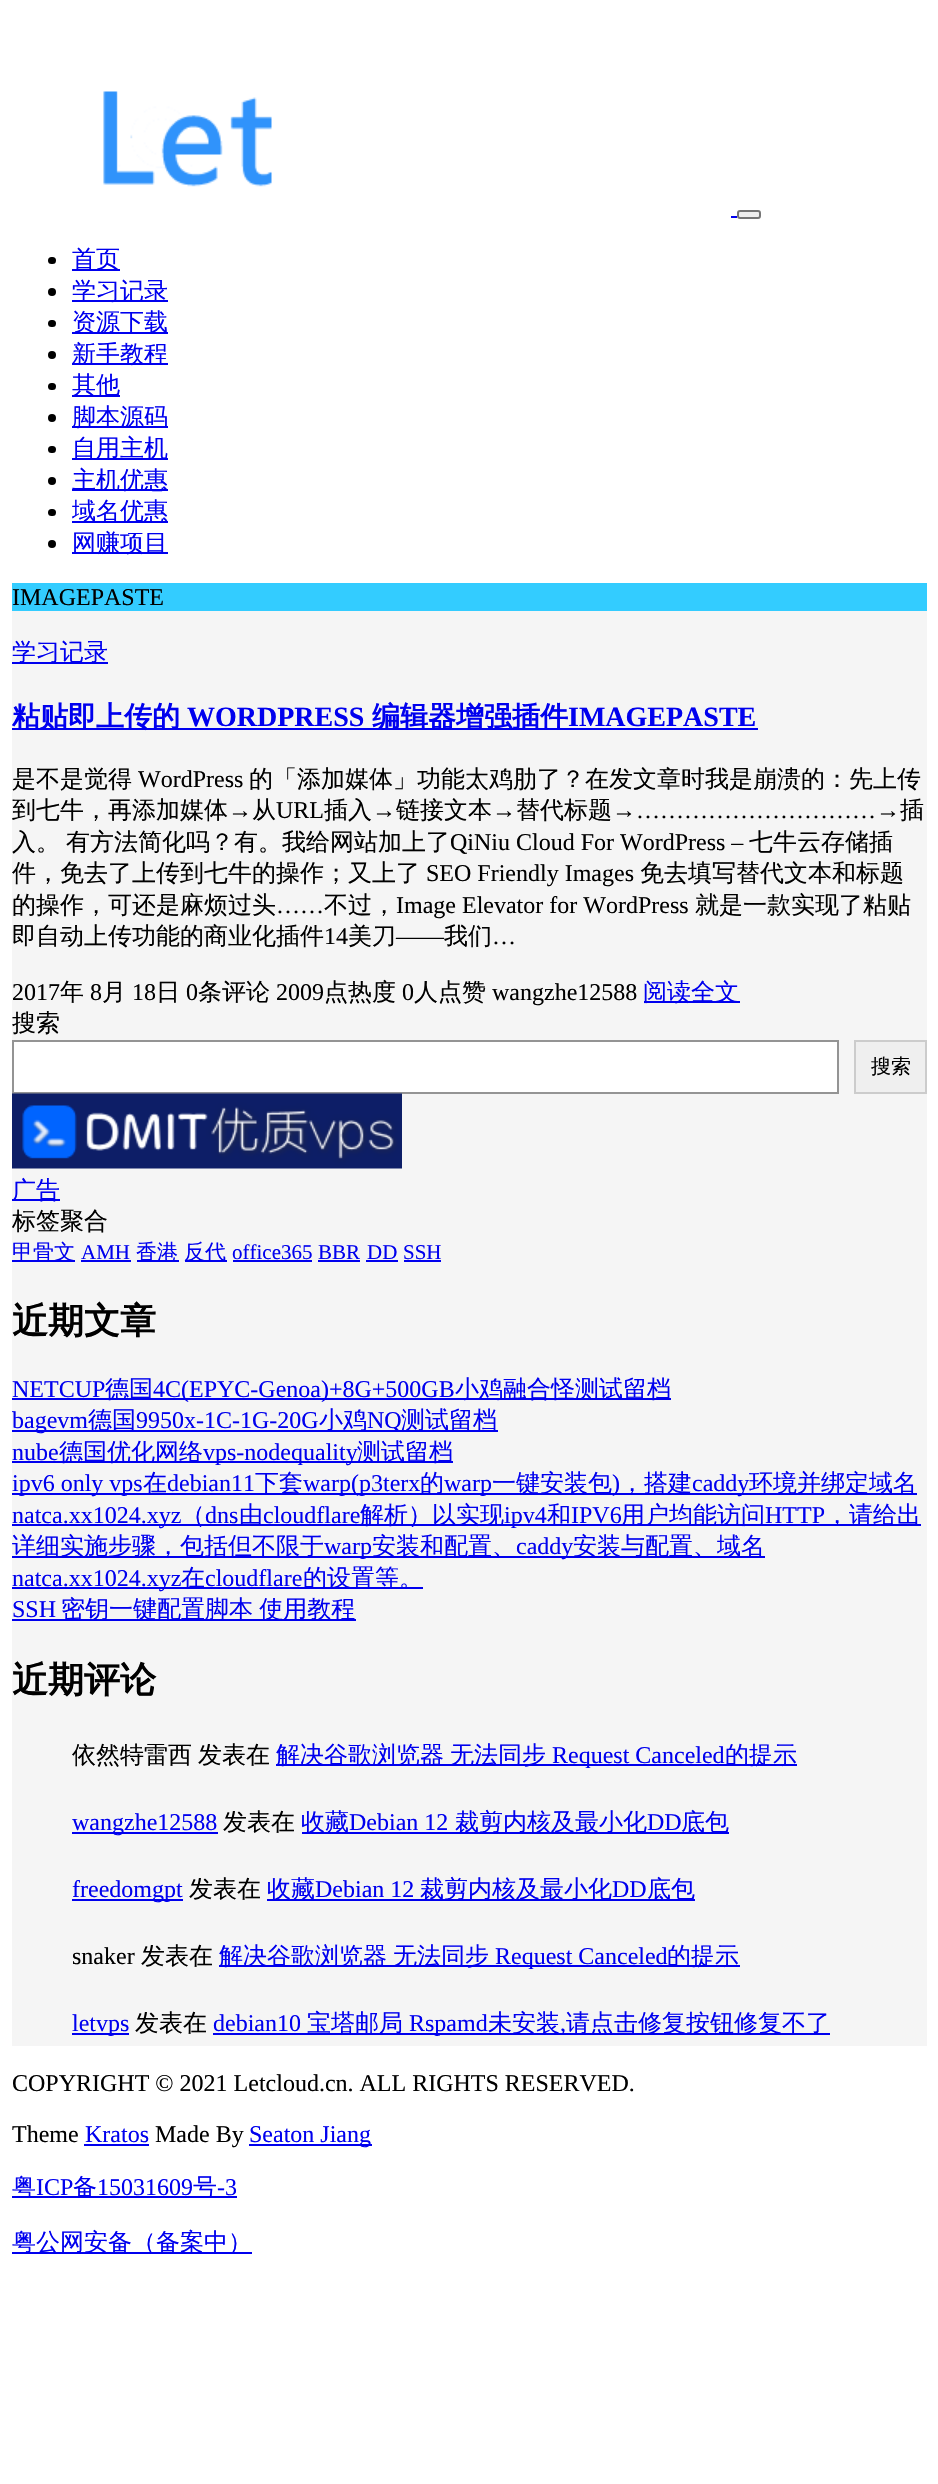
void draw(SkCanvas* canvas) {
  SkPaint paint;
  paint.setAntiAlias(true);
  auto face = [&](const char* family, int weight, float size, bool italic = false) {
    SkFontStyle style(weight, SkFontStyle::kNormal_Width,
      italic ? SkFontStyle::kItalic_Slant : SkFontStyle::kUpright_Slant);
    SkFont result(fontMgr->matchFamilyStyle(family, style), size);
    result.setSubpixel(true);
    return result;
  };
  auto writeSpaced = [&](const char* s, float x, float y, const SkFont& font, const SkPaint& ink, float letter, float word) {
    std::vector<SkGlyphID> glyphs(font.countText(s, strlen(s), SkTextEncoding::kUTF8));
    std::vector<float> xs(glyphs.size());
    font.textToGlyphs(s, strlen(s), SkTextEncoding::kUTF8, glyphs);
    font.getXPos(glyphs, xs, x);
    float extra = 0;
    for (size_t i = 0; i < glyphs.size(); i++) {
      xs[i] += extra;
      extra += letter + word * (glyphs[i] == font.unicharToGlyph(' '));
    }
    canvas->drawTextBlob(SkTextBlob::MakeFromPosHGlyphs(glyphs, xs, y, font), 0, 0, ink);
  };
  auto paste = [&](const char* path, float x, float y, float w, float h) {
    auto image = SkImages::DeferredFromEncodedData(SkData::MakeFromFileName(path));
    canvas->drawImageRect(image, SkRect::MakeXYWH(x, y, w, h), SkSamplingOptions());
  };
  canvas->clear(0xffffffff);
  paste("img/1.png", 103, 91, 169, 96);
  paint.setColor(0xff0000ee);
  canvas->drawRect(SkRect::MakeXYWH(731, 216, 6, 2), paint);
  paint.setColor(0xffefefef);
  canvas->drawRoundRect(SkRect::MakeXYWH(738, 211, 22, 7), 2, 2, paint);
  paint.setStroke(true);
  paint.setStrokeWidth(2);
  paint.setColor(0xff767676);
  canvas->drawRoundRect(SkRect::MakeXYWH(738, 211, 22, 7), 2, 2, paint);
  paint.setStroke(false);
  paint.setColor(0xff000000);
  canvas->drawRoundRect(SkRect::MakeXYWH(48, 257, 8, 7), 3.5f, 3.5f, paint);
  paint.setColor(0xff0000ee);
  canvas->drawRect(SkRect::MakeXYWH(72, 269, 48, 2), paint);
  paint.setColor(0xff000000);
  canvas->drawCircle(52, 292, 4, paint);
  paint.setColor(0xff0000ee);
  canvas->drawRect(SkRect::MakeXYWH(72, 300, 96, 2), paint);
  paint.setColor(0xff000000);
  canvas->drawRoundRect(SkRect::MakeXYWH(48, 320, 8, 7), 3.5f, 3.5f, paint);
  paint.setColor(0xff0000ee);
  canvas->drawRect(SkRect::MakeXYWH(72, 332, 96, 2), paint);
  paint.setColor(0xff000000);
  canvas->drawCircle(52, 355, 4, paint);
  paint.setColor(0xff0000ee);
  canvas->drawRect(SkRect::MakeXYWH(72, 363, 96, 2), paint);
  paint.setColor(0xff000000);
  canvas->drawRoundRect(SkRect::MakeXYWH(48, 383, 8, 7), 3.5f, 3.5f, paint);
  paint.setColor(0xff0000ee);
  canvas->drawRect(SkRect::MakeXYWH(72, 395, 48, 2), paint);
  paint.setColor(0xff000000);
  canvas->drawCircle(52, 418, 4, paint);
  paint.setColor(0xff0000ee);
  canvas->drawRect(SkRect::MakeXYWH(72, 426, 96, 2), paint);
  paint.setColor(0xff000000);
  canvas->drawRoundRect(SkRect::MakeXYWH(48, 446, 8, 7), 3.5f, 3.5f, paint);
  paint.setColor(0xff0000ee);
  canvas->drawRect(SkRect::MakeXYWH(72, 458, 96, 2), paint);
  paint.setColor(0xff000000);
  canvas->drawCircle(52, 481, 4, paint);
  paint.setColor(0xff0000ee);
  canvas->drawRect(SkRect::MakeXYWH(72, 489, 96, 2), paint);
  paint.setColor(0xff000000);
  canvas->drawRoundRect(SkRect::MakeXYWH(48, 509, 8, 7), 3.5f, 3.5f, paint);
  paint.setColor(0xff0000ee);
  canvas->drawRect(SkRect::MakeXYWH(72, 521, 96, 2), paint);
  paint.setColor(0xff000000);
  canvas->drawCircle(52, 544, 4, paint);
  {
    const struct { float x, y, w, h; SkColor color; } items[] = {
      {72, 552, 96, 2, 0xff0000ee},
      {12, 583, 915, 28, 0xff33ccff},
      {12, 611, 915, 1435, 0xfff5f5f5},
      {12, 662, 96, 2, 0xff0000ee},
      {12, 728, 746, 2, 0xff0000ee},
      {644, 1001, 96, 2, 0xff0000ee},
    };
    for (auto [x, y, w, h, color] : items) {
      paint.setColor(color);
      canvas->drawRect(SkRect::MakeXYWH(x, y, w, h), paint);
    }
  }
  paint.setColor(0xffffffff);
  canvas->drawRect(SkRect::MakeXYWH(13, 1041, 825, 52), paint);
  paint.setStroke(true);
  paint.setColor(0xff949494);
  canvas->drawRect(SkRect::MakeXYWH(13, 1041, 825, 52), paint);
  paint.setStroke(false);
  paint.setColor(0xffefefef);
  canvas->drawRect(SkRect::MakeXYWH(855, 1041, 71, 52), paint);
  paint.setStroke(true);
  paint.setColor(0xffcccccc);
  canvas->drawRect(SkRect::MakeXYWH(855, 1041, 71, 52), paint);
  paste("img/2.png", 12, 1093, 390, 76);
  paint.setStroke(false);
  {
    const struct { float x, y, w, h; SkColor color; } items[] = {
      {12, 1199, 48, 2, 0xff0000ee},
      {12, 1260, 63, 2, 0xff0000ee},
      {81, 1260, 50, 2, 0xff0000ee},
      {137, 1260, 42, 2, 0xff0000ee},
      {185, 1260, 42, 2, 0xff0000ee},
      {233, 1260, 79, 2, 0xff0000ee},
      {318, 1260, 42, 2, 0xff0000ee},
      {366, 1260, 32, 2, 0xff0000ee},
      {404, 1260, 37, 2, 0xff0000ee},
      {12, 1398, 659, 2, 0xff0000ee},
      {12, 1430, 486, 2, 0xff0000ee},
      {12, 1461, 441, 2, 0xff0000ee},
      {12, 1493, 905, 2, 0xff0000ee},
      {12, 1524, 909, 2, 0xff0000ee},
      {12, 1556, 753, 2, 0xff0000ee},
      {12, 1587, 411, 2, 0xff0000ee},
      {12, 1619, 344, 2, 0xff0000ee},
      {276, 1764, 521, 2, 0xff0000ee},
      {72, 1832, 146, 2, 0xff0000ee},
      {302, 1832, 427, 2, 0xff0000ee},
      {72, 1899, 111, 2, 0xff0000ee},
      {267, 1899, 428, 2, 0xff0000ee},
      {219, 1965, 521, 2, 0xff0000ee},
      {72, 2033, 57, 2, 0xff0000ee},
      {213, 2033, 617, 2, 0xff0000ee},
      {84, 2144, 65, 2, 0xff0000ee},
      {249, 2144, 123, 2, 0xff0000ee},
      {12, 2196, 225, 2, 0xff0000ee},
      {12, 2252, 240, 2, 0xff0000ee},
    };
    for (auto [x, y, w, h, color] : items) {
      paint.setColor(color);
      canvas->drawRect(SkRect::MakeXYWH(x, y, w, h), paint);
    }
  }
  auto f0 = face("WenQuanYi Zen Hei", 500, 24);
  {
    const struct { const char* s; float x, y; } items[] = {
      {"首页", 72, 267},
      {"学习记录", 72, 299},
      {"资源下载", 72, 330},
      {"新手教程", 72, 362},
      {"其他", 72, 393},
      {"脚本源码", 72, 425},
      {"自用主机", 72, 456},
      {"主机优惠", 72, 488},
      {"域名优惠", 72, 519},
      {"网赚项目", 72, 551},
    };
    for (auto [s, x, y] : items) {
      canvas->drawString(s, x, y, f0, paint);
    }
  }
  auto f1 = face("Liberation Serif", 400, 24);
  paint.setColor(0xff000000);
  canvas->drawString("IMAGEPASTE", 12, 605, f1, paint);
  paint.setColor(0xff0000ee);
  canvas->drawString("学习记录", 12, 660, f0, paint);
  auto f2 = face("WenQuanYi Zen Hei", 700, 28);
  canvas->drawString("粘贴即上传的", 12, 726, f2, paint);
  auto f3 = face("Liberation Serif", 700, 28);
  canvas->drawString("WORDPRESS", 187, 726, f3, paint);
  canvas->drawString("编辑器增强插件", 372, 726, f2, paint);
  canvas->drawString("IMAGEPASTE", 568, 726, f3, paint);
  paint.setColor(0xff000000);
  canvas->drawString("是不是觉得", 12, 787, f0, paint);
  canvas->drawString("WordPress", 138, 787, f1, paint);
  canvas->drawString("的「添加媒体」功能太鸡肋了？在发文章时我是崩溃的：先上传", 249, 787, f0, paint);
  canvas->drawString("到七牛，再添加媒体", 12, 818, f0, paint);
  canvas->drawString("→", 228, 818, f1, paint);
  canvas->drawString("从", 252, 818, f0, paint);
  canvas->drawString("URL", 276, 818, f1, paint);
  canvas->drawString("插入", 324, 818, f0, paint);
  canvas->drawString("→", 372, 818, f1, paint);
  canvas->drawString("链接文本", 396, 818, f0, paint);
  canvas->drawString("→", 492, 818, f1, paint);
  canvas->drawString("替代标题", 516, 818, f0, paint);
  canvas->drawString("→…………………………→", 612, 818, f1, paint);
  {
    const struct { const char* s; float x, y; } items[] = {
      {"插", 900, 818},
      {"入。", 12, 850},
      {"有方法简化吗？有。我给网站加上了", 66, 850},
    };
    for (auto [s, x, y] : items) {
      canvas->drawString(s, x, y, f0, paint);
    }
  }
  canvas->drawString("QiNiu Cloud For WordPress –", 450, 850, f1, paint);
  canvas->drawString("七牛云存储插", 749, 850, f0, paint);
  canvas->drawString("件，免去了上传到七牛的操作；又上了", 12, 881, f0, paint);
  canvas->drawString("SEO Friendly Images", 426, 881, f1, paint);
  canvas->drawString("免去填写替代文本和标题", 640, 881, f0, paint);
  canvas->drawString("的操作，可还是麻烦过头", 12, 913, f0, paint);
  canvas->drawString("……", 276, 913, f1, paint);
  canvas->drawString("不过，", 324, 913, f0, paint);
  canvas->drawString("Image Elevator for WordPress", 396, 913, f1, paint);
  canvas->drawString("就是一款实现了粘贴", 695, 913, f0, paint);
  canvas->drawString("即自动上传功能的商业化插件", 12, 944, f0, paint);
  canvas->drawString("14", 324, 944, f1, paint);
  canvas->drawString("美刀", 348, 944, f0, paint);
  canvas->drawString("——", 396, 944, f1, paint);
  canvas->drawString("我们", 444, 944, f0, paint);
  canvas->drawString("…", 492, 944, f1, paint);
  canvas->drawString("2017", 12, 1000, f1, paint);
  canvas->drawString("年", 60, 1000, f0, paint);
  canvas->drawString("8", 90, 1000, f1, paint);
  canvas->drawString("月", 102, 1000, f0, paint);
  canvas->drawString("18", 132, 1000, f1, paint);
  canvas->drawString("日", 156, 1000, f0, paint);
  canvas->drawString("0", 186, 1000, f1, paint);
  canvas->drawString("条评论", 198, 1000, f0, paint);
  canvas->drawString("2009", 276, 1000, f1, paint);
  canvas->drawString("点热度", 324, 1000, f0, paint);
  canvas->drawString("0", 402, 1000, f1, paint);
  canvas->drawString("人点赞", 414, 1000, f0, paint);
  canvas->drawString("wangzhe12588", 492, 1000, f1, paint);
  paint.setColor(0xff0000ee);
  canvas->drawString("阅读全文", 643, 1000, f0, paint);
  paint.setColor(0xff000000);
  canvas->drawString("搜索", 12, 1031, f0, paint);
  auto f4 = face("WenQuanYi Zen Hei", 500, 20);
  canvas->drawString("搜索", 871, 1073, f4, paint);
  paint.setColor(0xff0000ee);
  canvas->drawString("广告", 12, 1198, f0, paint);
  paint.setColor(0xff000000);
  canvas->drawString("标签聚合", 12, 1229, f0, paint);
  auto f5 = face("WenQuanYi Zen Hei", 500, 21);
  paint.setColor(0xff0000ee);
  canvas->drawString("甲骨文", 12, 1259, f5, paint);
  auto f6 = face("Liberation Serif", 400, 21);
  canvas->drawString("AMH", 81, 1259, f6, paint);
  canvas->drawString("香港", 136, 1259, f5, paint);
  canvas->drawString("反代", 184, 1259, f5, paint);
  {
    const struct { const char* s; float x, y; } items[] = {
      {"office365", 232, 1259},
      {"BBR", 318, 1259},
      {"DD", 367, 1259},
      {"SSH", 403, 1259},
    };
    for (auto [s, x, y] : items) {
      canvas->drawString(s, x, y, f6, paint);
    }
  }
  auto f7 = face("WenQuanYi Zen Hei", 700, 36);
  paint.setColor(0xff000000);
  canvas->drawString("近期文章", 12, 1333, f7, paint);
  paint.setColor(0xff0000ee);
  canvas->drawString("NETCUP", 12, 1397, f1, paint);
  canvas->drawString("德国", 105, 1397, f0, paint);
  canvas->drawString("4C(EPYC-Genoa)+8G+500GB", 153, 1397, f1, paint);
  canvas->drawString("小鸡融合怪测试留档", 455, 1397, f0, paint);
  canvas->drawString("bagevm", 12, 1428, f1, paint);
  canvas->drawString("德国", 88, 1428, f0, paint);
  canvas->drawString("9950x-1C-1G-20G", 136, 1428, f1, paint);
  canvas->drawString("小鸡", 319, 1428, f0, paint);
  canvas->drawString("NQ", 367, 1428, f1, paint);
  canvas->drawString("测试留档", 401, 1428, f0, paint);
  canvas->drawString("nube", 12, 1460, f1, paint);
  canvas->drawString("德国优化网络", 59, 1460, f0, paint);
  canvas->drawString("vps-nodequality", 203, 1460, f1, paint);
  canvas->drawString("测试留档", 357, 1460, f0, paint);
  canvas->drawString("ipv6 only vps", 12, 1491, f1, paint);
  canvas->drawString("在", 143, 1491, f0, paint);
  canvas->drawString("debian11", 167, 1491, f1, paint);
  canvas->drawString("下套", 255, 1491, f0, paint);
  canvas->drawString("warp(p3terx", 303, 1491, f1, paint);
  canvas->drawString("的", 420, 1491, f0, paint);
  canvas->drawString("warp", 444, 1491, f1, paint);
  canvas->drawString("一键安装包", 492, 1491, f0, paint);
  canvas->drawString(")", 612, 1491, f1, paint);
  canvas->drawString("，搭建", 620, 1491, f0, paint);
  canvas->drawString("caddy", 692, 1491, f1, paint);
  canvas->drawString("环境并绑定域名", 749, 1491, f0, paint);
  canvas->drawString("natca.xx1024.xyz", 12, 1523, f1, paint);
  canvas->drawString("（", 181, 1523, f0, paint);
  canvas->drawString("dns", 205, 1523, f1, paint);
  canvas->drawString("由", 239, 1523, f0, paint);
  canvas->drawString("cloudflare", 263, 1523, f1, paint);
  canvas->drawString("解析）以实现", 360, 1523, f0, paint);
  canvas->drawString("ipv4", 504, 1523, f1, paint);
  canvas->drawString("和", 547, 1523, f0, paint);
  canvas->drawString("IPV6", 571, 1523, f1, paint);
  canvas->drawString("用户均能访问", 621, 1523, f0, paint);
  canvas->drawString("HTTP", 765, 1523, f1, paint);
  canvas->drawString("，请给出", 825, 1523, f0, paint);
  canvas->drawString("详细实施步骤，包括但不限于", 12, 1554, f0, paint);
  canvas->drawString("warp", 324, 1554, f1, paint);
  canvas->drawString("安装和配置、", 372, 1554, f0, paint);
  canvas->drawString("caddy", 516, 1554, f1, paint);
  canvas->drawString("安装与配置、域名", 573, 1554, f0, paint);
  canvas->drawString("natca.xx1024.xyz", 12, 1586, f1, paint);
  canvas->drawString("在", 181, 1586, f0, paint);
  canvas->drawString("cloudflare", 205, 1586, f1, paint);
  canvas->drawString("的设置等。", 303, 1586, f0, paint);
  canvas->drawString("SSH", 12, 1617, f1, paint);
  writeSpaced("密钥一键配置脚本 使用教程", 61, 1617, f0, paint, 0, -1);
  paint.setColor(0xff000000);
  canvas->drawString("近期评论", 12, 1692, f7, paint);
  canvas->drawString("依然特雷西", 72, 1763, f0, paint);
  canvas->drawString("发表在", 198, 1763, f0, paint);
  paint.setColor(0xff0000ee);
  canvas->drawString("解决谷歌浏览器", 276, 1763, f0, paint);
  canvas->drawString("无法同步", 450, 1763, f0, paint);
  canvas->drawString("Request Canceled", 552, 1763, f1, paint);
  canvas->drawString("的提示", 725, 1763, f0, paint);
  canvas->drawString("wangzhe12588", 72, 1830, f1, paint);
  paint.setColor(0xff000000);
  canvas->drawString("发表在", 223, 1830, f0, paint);
  paint.setColor(0xff0000ee);
  canvas->drawString("收藏", 301, 1830, f0, paint);
  canvas->drawString("Debian 12", 349, 1830, f1, paint);
  canvas->drawString("裁剪内核及最小化", 455, 1830, f0, paint);
  canvas->drawString("DD", 647, 1830, f1, paint);
  canvas->drawString("底包", 681, 1830, f0, paint);
  canvas->drawString("freedomgpt", 72, 1897, f1, paint);
  paint.setColor(0xff000000);
  canvas->drawString("发表在", 189, 1897, f0, paint);
  paint.setColor(0xff0000ee);
  canvas->drawString("收藏", 267, 1897, f0, paint);
  canvas->drawString("Debian 12", 315, 1897, f1, paint);
  canvas->drawString("裁剪内核及最小化", 420, 1897, f0, paint);
  canvas->drawString("DD", 612, 1897, f1, paint);
  canvas->drawString("底包", 647, 1897, f0, paint);
  paint.setColor(0xff000000);
  canvas->drawString("snaker", 72, 1964, f1, paint);
  canvas->drawString("发表在", 141, 1964, f0, paint);
  paint.setColor(0xff0000ee);
  canvas->drawString("解决谷歌浏览器", 219, 1964, f0, paint);
  canvas->drawString("无法同步", 393, 1964, f0, paint);
  canvas->drawString("Request Canceled", 495, 1964, f1, paint);
  canvas->drawString("的提示", 667, 1964, f0, paint);
  canvas->drawString("letvps", 72, 2031, f1, paint);
  paint.setColor(0xff000000);
  canvas->drawString("发表在", 135, 2031, f0, paint);
  paint.setColor(0xff0000ee);
  canvas->drawString("debian10", 213, 2031, f1, paint);
  canvas->drawString("宝塔邮局", 307, 2031, f0, paint);
  canvas->drawString("Rspamd", 409, 2031, f1, paint);
  canvas->drawString("未安装", 488, 2031, f0, paint);
  canvas->drawString(",", 560, 2031, f1, paint);
  canvas->drawString("请点击修复按钮修复不了", 566, 2031, f0, paint);
  paint.setColor(0xff000000);
  canvas->drawString("COPYRIGHT © 2021 Letcloud.cn. ALL RIGHTS RESERVED.", 12, 2091, f1, paint);
  canvas->drawString("Theme", 12, 2142, f1, paint);
  paint.setColor(0xff0000ee);
  canvas->drawString("Kratos", 85, 2142, f1, paint);
  paint.setColor(0xff000000);
  canvas->drawString("Made By", 155, 2142, f1, paint);
  paint.setColor(0xff0000ee);
  canvas->drawString("Seaton Jiang", 249, 2142, f1, paint);
  canvas->drawString("粤", 12, 2195, f0, paint);
  canvas->drawString("ICP", 36, 2195, f1, paint);
  canvas->drawString("备", 73, 2195, f0, paint);
  canvas->drawString("15031609", 97, 2195, f1, paint);
  canvas->drawString("号", 193, 2195, f0, paint);
  canvas->drawString("-3", 217, 2195, f1, paint);
  canvas->drawString("粤公网安备（备案中）", 12, 2250, f0, paint);
}
